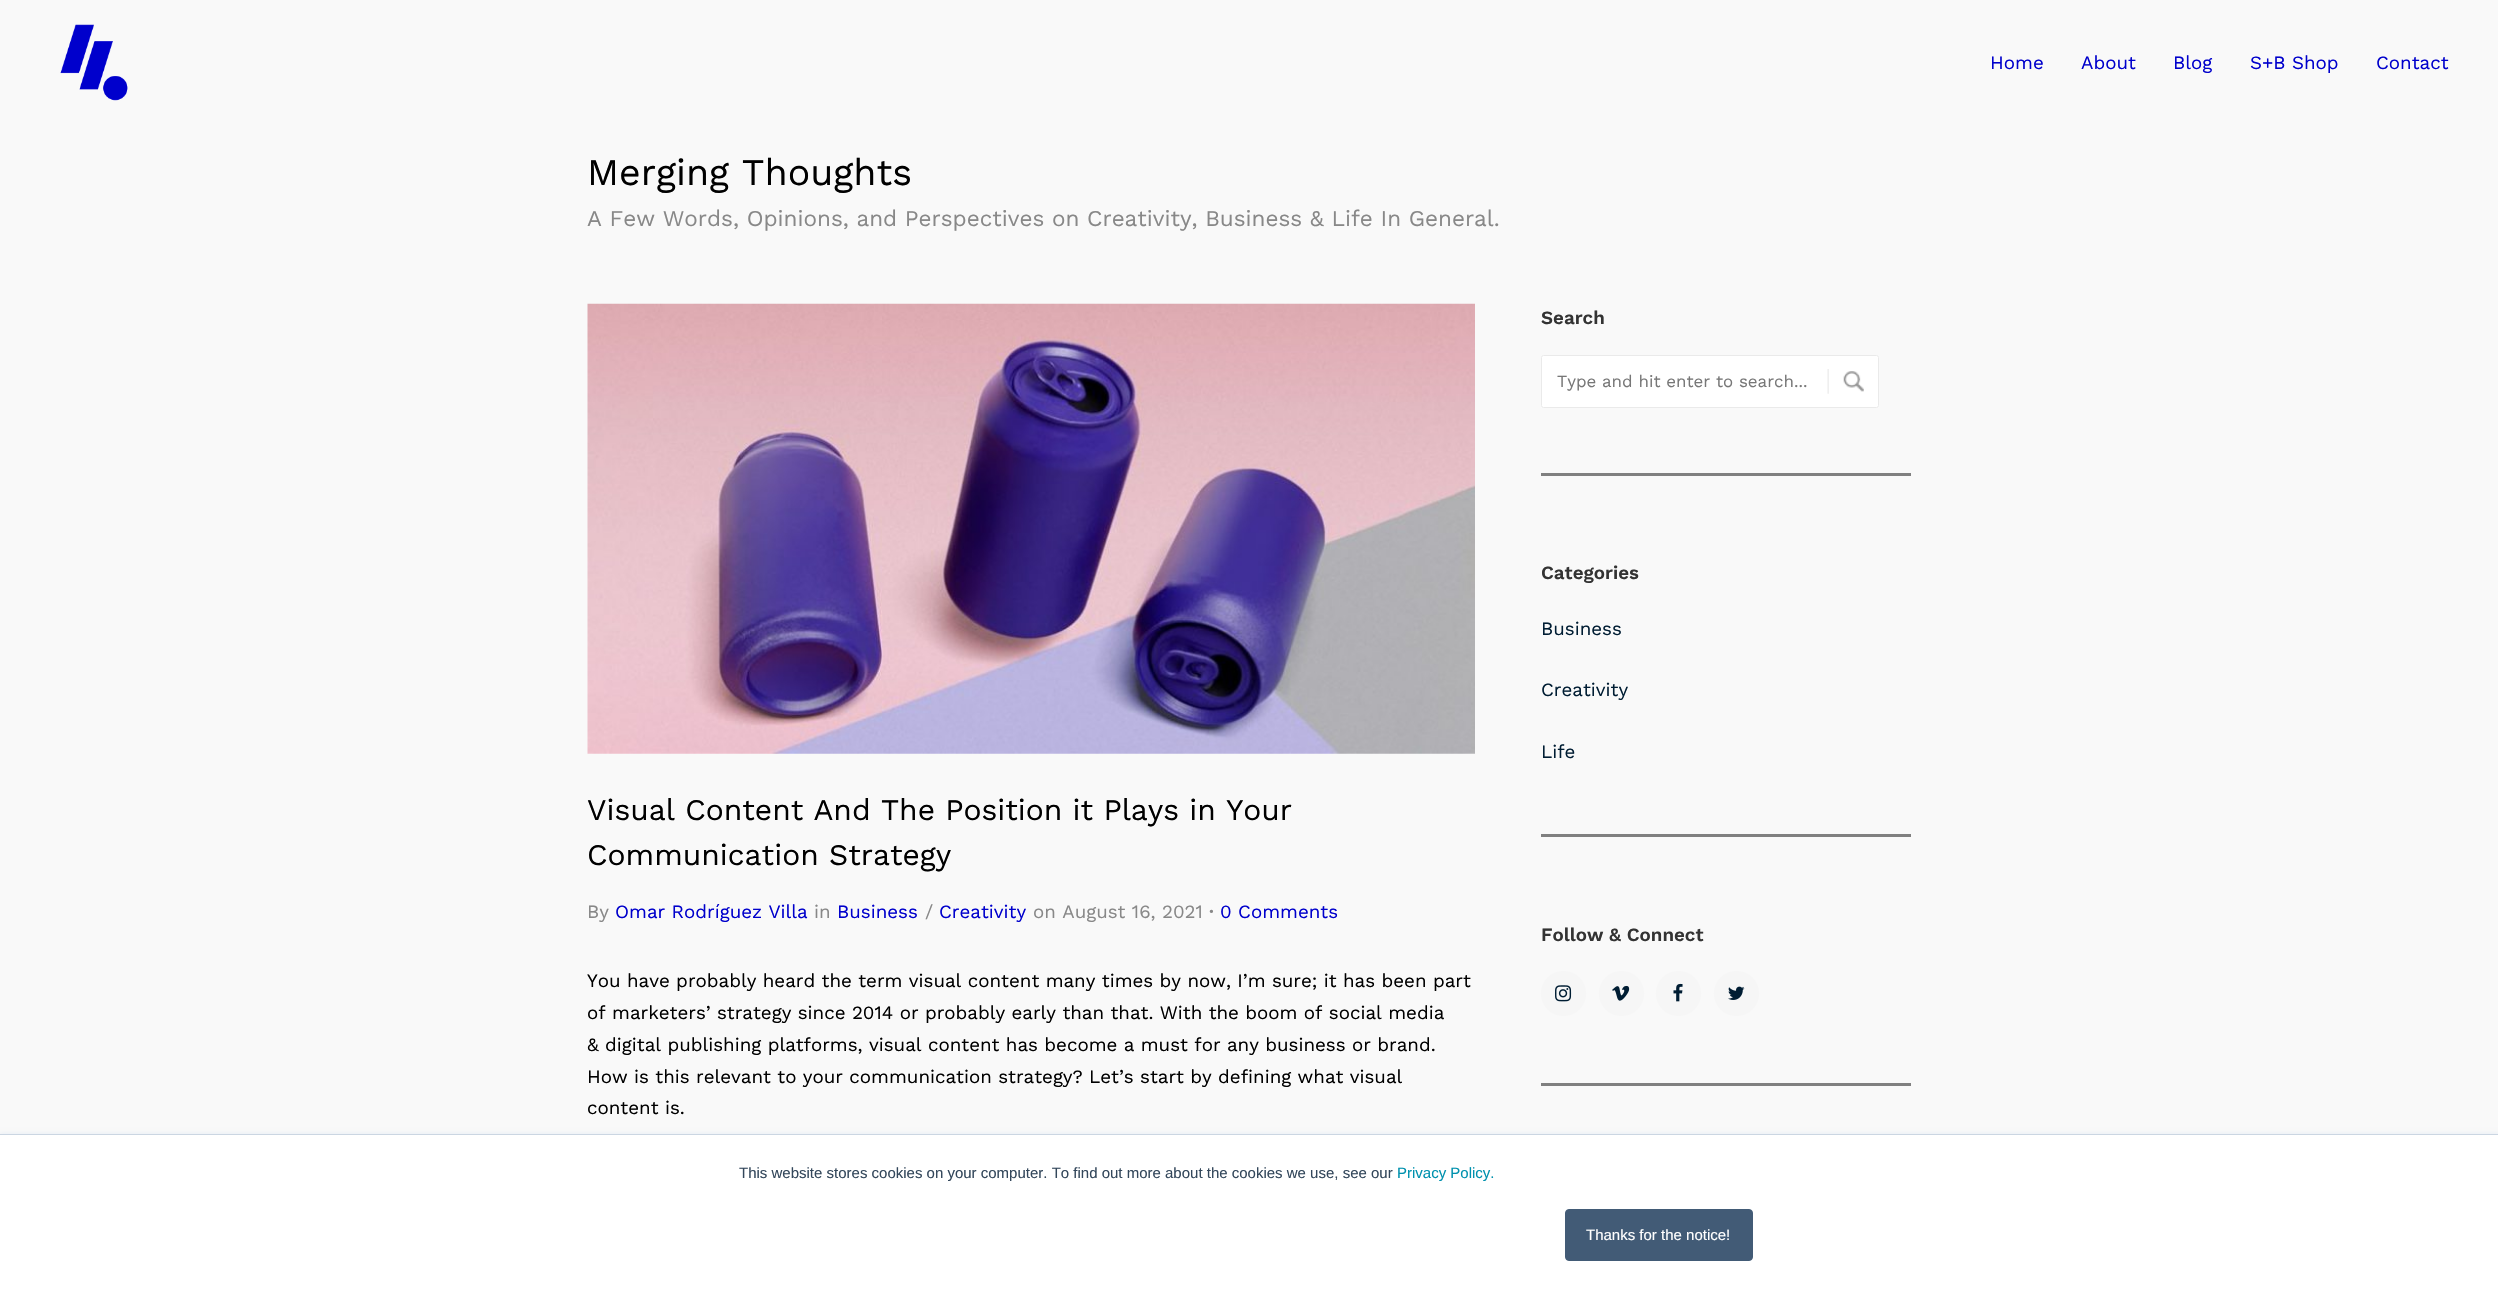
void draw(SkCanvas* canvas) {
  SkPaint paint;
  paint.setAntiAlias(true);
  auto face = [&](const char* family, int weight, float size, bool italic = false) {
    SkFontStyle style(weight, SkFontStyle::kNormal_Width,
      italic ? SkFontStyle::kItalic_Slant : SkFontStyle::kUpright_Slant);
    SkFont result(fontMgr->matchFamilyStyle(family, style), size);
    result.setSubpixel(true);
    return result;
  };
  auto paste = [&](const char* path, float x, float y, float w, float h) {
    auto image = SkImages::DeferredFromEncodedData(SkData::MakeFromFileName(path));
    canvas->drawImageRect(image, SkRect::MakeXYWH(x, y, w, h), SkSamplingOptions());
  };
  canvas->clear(0xfff9f9f9);
  paste("img/1.png", 60, 24, 68, 77);
  paste("img/2.png", 587, 303, 888, 451);
  paint.setColor(0xffffffff);
  canvas->drawRoundRect(SkRect::MakeXYWH(1541, 355, 338, 53), 2.5f, 2.5f, paint);
  paste("img/3.png", 1827, 369, 37, 25);
  paint.setStroke(true);
  paint.setStrokeWidth(1);
  paint.setColor(0xffeaeaea);
  canvas->drawRoundRect(SkRect::MakeXYWH(1541.5f, 355.5f, 337, 52), 2, 2, paint);
  paint.setStroke(false);
  paint.setColor(0xff808080);
  canvas->drawRect(SkRect::MakeXYWH(1541, 473, 370, 3), paint);
  canvas->drawRect(SkRect::MakeXYWH(1541, 834, 370, 3), paint);
  paint.setColor(0xfff6f6f6);
  canvas->drawCircle(1563.5f, 993.5f, 22.5f, paint);
  paste("img/4.png", 1555, 985, 17, 17);
  canvas->drawCircle(1621.5f, 993.5f, 22.5f, paint);
  paste("img/5.png", 1612, 985, 18, 16);
  canvas->drawCircle(1678.5f, 993.5f, 22.5f, paint);
  paste("img/6.png", 1673, 983, 10, 19);
  canvas->drawCircle(1736.5f, 993.5f, 22.5f, paint);
  paste("img/7.png", 1728, 986, 17, 14);
  paint.setColor(0xff808080);
  canvas->drawRect(SkRect::MakeXYWH(1541, 1083, 370, 3), paint);
  paint.setColor(0xffeaf0f6);
  paint.setMaskFilter(SkMaskFilter::MakeBlur(kNormal_SkBlurStyle, 2));
  canvas->drawRect(SkRect::MakeXYWH(0, 1133, 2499, 160), paint);
  paint.setMaskFilter(nullptr);
  paint.setColor(0xffffffff);
  canvas->drawRect(SkRect::MakeXYWH(0, 1135, 2498, 158), paint);
  paint.setColor(0xffcbd6e2);
  canvas->drawRect(SkRect::MakeXYWH(0, 1134, 2498, 1), paint);
  paint.setColor(0xff425b76);
  canvas->drawRoundRect(SkRect::MakeXYWH(1565.5f, 1209.5f, 187, 51), 3.5f, 3.5f, paint);
  paint.setStroke(true);
  canvas->drawRoundRect(SkRect::MakeXYWH(1565.5f, 1209.5f, 187, 51), 3.5f, 3.5f, paint);
  auto f0 = face("Work Sans", 400, 18.75f);
  paint.setStroke(false);
  paint.setColor(0xff0000cc);
  {
    const struct { const char* s; float x, y; } items[] = {
      {"Home", 1990, 69},
      {"About", 2081, 69},
      {"Blog", 2173, 69},
      {"S+B Shop", 2250, 69},
      {"Contact", 2376, 69},
    };
    for (auto [s, x, y] : items) {
      canvas->drawString(s, x, y, f0, paint);
    }
  }
  auto f1 = face("Work Sans", 400, 37.5f);
  paint.setColor(0xff000000);
  canvas->drawString("Merging Thoughts", 587, 185, f1, paint);
  auto f2 = face("Work Sans", 400, 22.5f);
  paint.setColor(0xff888888);
  canvas->drawString("A Few Words, Opinions, and Perspectives on Creativity, Business & Life In General.", 587, 226, f2, paint);
  auto f3 = face("Work Sans", 400, 30);
  paint.setColor(0xff000000);
  canvas->drawString("Visual Content And The Position it Plays in Your", 587, 820, f3, paint);
  canvas->drawString("Communication Strategy", 587, 865, f3, paint);
  paint.setColor(0xff888888);
  canvas->drawString("By", 587, 918, f0, paint);
  paint.setColor(0xff0000cc);
  canvas->drawString("Omar Rodríguez Villa", 615, 918, f0, paint);
  paint.setColor(0xff888888);
  canvas->drawString("in", 814, 918, f0, paint);
  paint.setColor(0xff0000cc);
  canvas->drawString("Business", 837, 918, f0, paint);
  paint.setColor(0xff888888);
  canvas->drawString("/", 925, 918, f0, paint);
  paint.setColor(0xff0000cc);
  canvas->drawString("Creativity", 939, 918, f0, paint);
  paint.setColor(0xff888888);
  canvas->drawString("on August 16, 2021", 1033, 918, f0, paint);
  auto f4 = face("Work Sans", 600, 18.75f);
  canvas->drawString("·", 1209, 918, f4, paint);
  paint.setColor(0xff0000cc);
  canvas->drawString("0 Comments", 1220, 918, f0, paint);
  paint.setColor(0xff000000);
  {
    const struct { const char* s; float x, y; } items[] = {
      {"You have probably heard the term visual content many times by now, I’m sure; it has been part", 587, 987},
      {"of marketers’ strategy since 2014 or probably early than that. With the boom of social media", 587, 1019},
      {"& digital publishing platforms, visual content has become a must for any business or brand.", 587, 1051},
      {"How is this relevant to your communication strategy? Let’s start by defining what visual", 587, 1083},
      {"content is.", 587, 1114},
    };
    for (auto [s, x, y] : items) {
      canvas->drawString(s, x, y, f0, paint);
    }
  }
  paint.setColor(0xff333333);
  canvas->drawString("Search", 1541, 324, f4, paint);
  auto f5 = face("Work Sans", 400, 16.9f);
  paint.setColor(0xff777777);
  canvas->drawString("Type and hit enter to search...", 1557, 387, f5, paint);
  paint.setColor(0xff333333);
  canvas->drawString("Categories", 1541, 579, f4, paint);
  paint.setColor(0xff001d33);
  {
    const struct { const char* s; float x, y; } items[] = {
      {"Business", 1541, 635},
      {"Creativity", 1541, 696},
      {"Life", 1541, 758},
    };
    for (auto [s, x, y] : items) {
      canvas->drawString(s, x, y, f0, paint);
    }
  }
  paint.setColor(0xff333333);
  canvas->drawString("Follow & Connect", 1541, 941, f4, paint);
  auto f6 = face("Liberation Sans", 400, 15);
  paint.setColor(0xff33475b);
  canvas->drawString("This website stores cookies on your computer. To find out more about the cookies we use, see our", 739, 1178, f6, paint);
  paint.setColor(0xff0091ae);
  canvas->drawString("Privacy Policy.", 1397, 1178, f6, paint);
  paint.setColor(0xffffffff);
  canvas->drawString("Thanks for the notice!", 1586, 1240, f6, paint);
}
